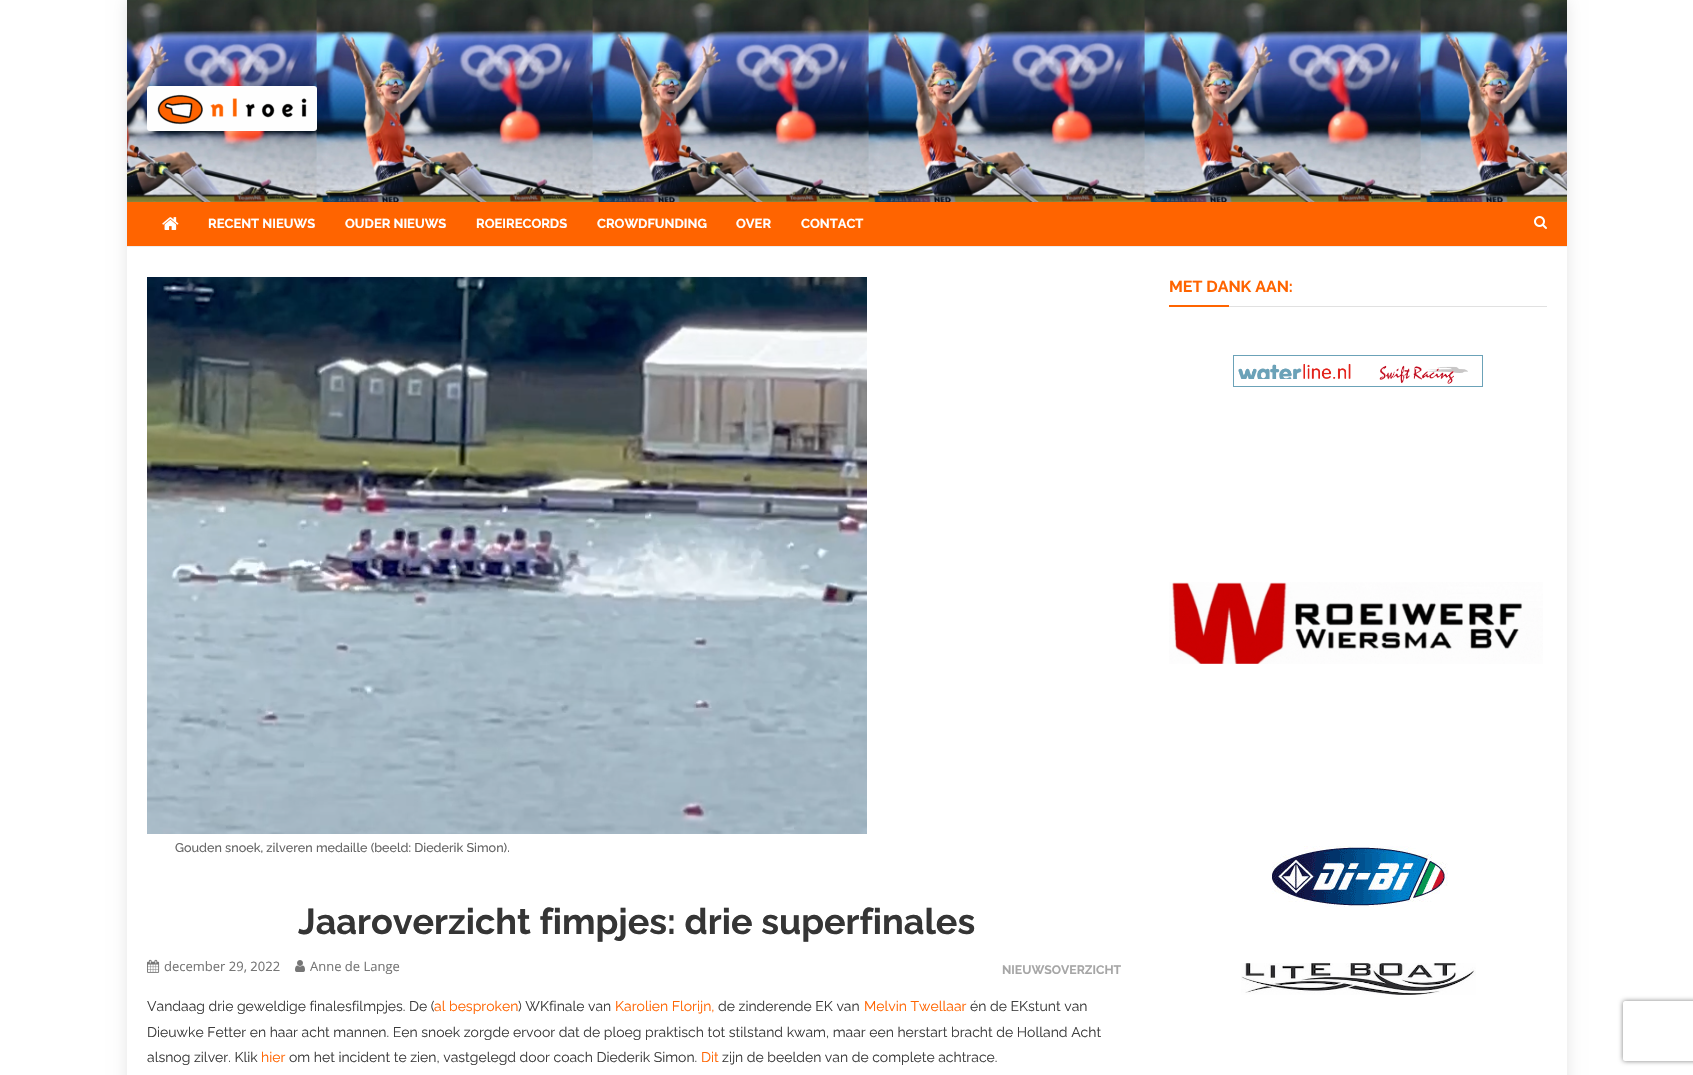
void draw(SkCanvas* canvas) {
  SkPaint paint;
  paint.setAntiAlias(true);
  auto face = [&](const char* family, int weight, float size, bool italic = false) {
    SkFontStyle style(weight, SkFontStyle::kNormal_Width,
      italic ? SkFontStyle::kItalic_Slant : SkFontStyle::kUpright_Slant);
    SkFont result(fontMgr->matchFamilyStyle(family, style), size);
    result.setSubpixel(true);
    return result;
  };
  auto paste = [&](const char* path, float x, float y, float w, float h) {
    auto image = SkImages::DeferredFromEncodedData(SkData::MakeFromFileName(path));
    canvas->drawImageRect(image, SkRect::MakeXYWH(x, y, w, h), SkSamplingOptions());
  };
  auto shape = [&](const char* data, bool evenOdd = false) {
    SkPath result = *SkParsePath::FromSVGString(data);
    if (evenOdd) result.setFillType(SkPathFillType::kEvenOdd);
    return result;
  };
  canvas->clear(0xffffffff);
  canvas->save();
  canvas->clipPath(shape("M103 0H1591V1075H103ZM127 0H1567V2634H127Z", true), true);
  paint.setColor(0x1a000000);
  paint.setMaskFilter(SkMaskFilter::MakeBlur(kNormal_SkBlurStyle, 7.5f));
  canvas->drawRect(SkRect::MakeXYWH(127, 0, 1440, 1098), paint);
  paint.setMaskFilter(nullptr);
  canvas->restore();
  paste("img/1.png", 127, 0, 1440, 202);
  paste("img/2.png", 147, 86, 170, 45);
  paint.setColor(0xffff6400);
  canvas->drawRect(SkRect::MakeXYWH(127, 202, 1440, 44), paint);
  paint.setColor(0xffeeeeee);
  canvas->drawRect(SkRect::MakeXYWH(127, 246, 1440, 1), paint);
  paste("img/3.png", 162, 217, 17, 13);
  paste("img/4.png", 1534, 216, 13, 13);
  paint.setColor(0xffe1e1e1);
  canvas->drawRect(SkRect::MakeXYWH(1229, 306, 318, 1), paint);
  paint.setColor(0xffff6400);
  canvas->drawRect(SkRect::MakeXYWH(1169, 305, 60, 2), paint);
  paste("img/5.png", 1233, 355, 250, 32);
  paste("img/6.png", 1169, 582, 374, 82);
  paste("img/7.png", 1272, 846, 176, 61);
  paste("img/8.png", 1241, 963, 235, 32);
  paste("img/9.png", 147, 277, 720, 557);
  paste("img/10.png", 147, 959, 13, 14);
  paste("img/11.png", 295, 960, 10, 12);
  canvas->save();
  canvas->clipPath(shape("M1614 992H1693V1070H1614ZM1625 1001H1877C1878 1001 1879 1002 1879 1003V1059C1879 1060 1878 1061 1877 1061H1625C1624 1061 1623 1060 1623 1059V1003C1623 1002 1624 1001 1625 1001Z", true), true);
  paint.setColor(0xff808080);
  paint.setMaskFilter(SkMaskFilter::MakeBlur(kNormal_SkBlurStyle, 2.5f));
  canvas->drawRoundRect(SkRect::MakeXYWH(1623, 1001, 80, 60), 2, 2, paint);
  paint.setMaskFilter(nullptr);
  canvas->restore();
  auto f0 = face("Raleway", 700, 13);
  paint.setColor(0xffffffff);
  {
    const struct { const char* s; float x, y; } items[] = {
      {"RECENT NIEUWS", 208, 228},
      {"OUDER NIEUWS", 345, 228},
      {"ROEIRECORDS", 476, 228},
      {"CROWDFUNDING", 597, 228},
      {"OVER", 736, 228},
      {"CONTACT", 801, 228},
    };
    for (auto [s, x, y] : items) {
      canvas->drawString(s, x, y, f0, paint);
    }
  }
  auto f1 = face("Raleway", 700, 16);
  paint.setColor(0xffff6400);
  canvas->drawString("MET DANK AAN:", 1169, 292, f1, paint);
  auto f2 = face("Raleway", 500, 12.6f);
  paint.setColor(0xff666666);
  canvas->drawString("Gouden snoek, zilveren medaille (beeld: Diederik Simon).", 175, 852, f2, paint);
  auto f3 = face("Raleway", 700, 36);
  paint.setColor(0xff353535);
  canvas->drawString("Jaaroverzicht fimpjes: drie superfinales", 298, 934, f3, paint);
  auto f4 = face("Open Sans", 400, 13);
  paint.setColor(0xff767676);
  canvas->drawString("december 29, 2022", 164, 971, f4, paint);
  canvas->drawString("Anne de Lange", 310, 971, f4, paint);
  auto f5 = face("Raleway", 700, 12.25f);
  paint.setColor(0xffa6a6a6);
  canvas->drawString("NIEUWSOVERZICHT", 1002, 974, f5, paint);
  auto f6 = face("Raleway", 400, 14);
  paint.setColor(0xff3d3d3d);
  canvas->drawString("Vandaag drie geweldige finalesfilmpjes. De (", 147, 1011, f6, paint);
  paint.setColor(0xffff6400);
  canvas->drawString("al besproken", 434, 1011, f6, paint);
  paint.setColor(0xff3d3d3d);
  canvas->drawString(") WKfinale van", 518, 1011, f6, paint);
  paint.setColor(0xffff6400);
  canvas->drawString("Karolien Florijn,", 615, 1011, f6, paint);
  paint.setColor(0xff3d3d3d);
  canvas->drawString("de zinderende EK van", 718, 1011, f6, paint);
  paint.setColor(0xffff6400);
  canvas->drawString("Melvin Twellaar", 864, 1011, f6, paint);
  paint.setColor(0xff3d3d3d);
  {
    const struct { const char* s; float x, y; } items[] = {
      {"én de EKstunt van", 970, 1011},
      {"Dieuwke Fetter en haar acht mannen. Een snoek zorgde ervoor dat de ploeg praktisch tot stilstand kwam, maar een herstart bracht de Holland Acht", 147, 1037},
      {"alsnog zilver. Klik", 147, 1062},
    };
    for (auto [s, x, y] : items) {
      canvas->drawString(s, x, y, f6, paint);
    }
  }
  paint.setColor(0xffff6400);
  canvas->drawString("hier", 261, 1062, f6, paint);
  paint.setColor(0xff3d3d3d);
  canvas->drawString("om het incident te zien, vastgelegd door coach Diederik Simon.", 289, 1062, f6, paint);
  paint.setColor(0xffff6400);
  canvas->drawString("Dit", 701, 1062, f6, paint);
  paint.setColor(0xff3d3d3d);
  canvas->drawString("zijn de beelden van de complete achtrace.", 722, 1062, f6, paint);
}
